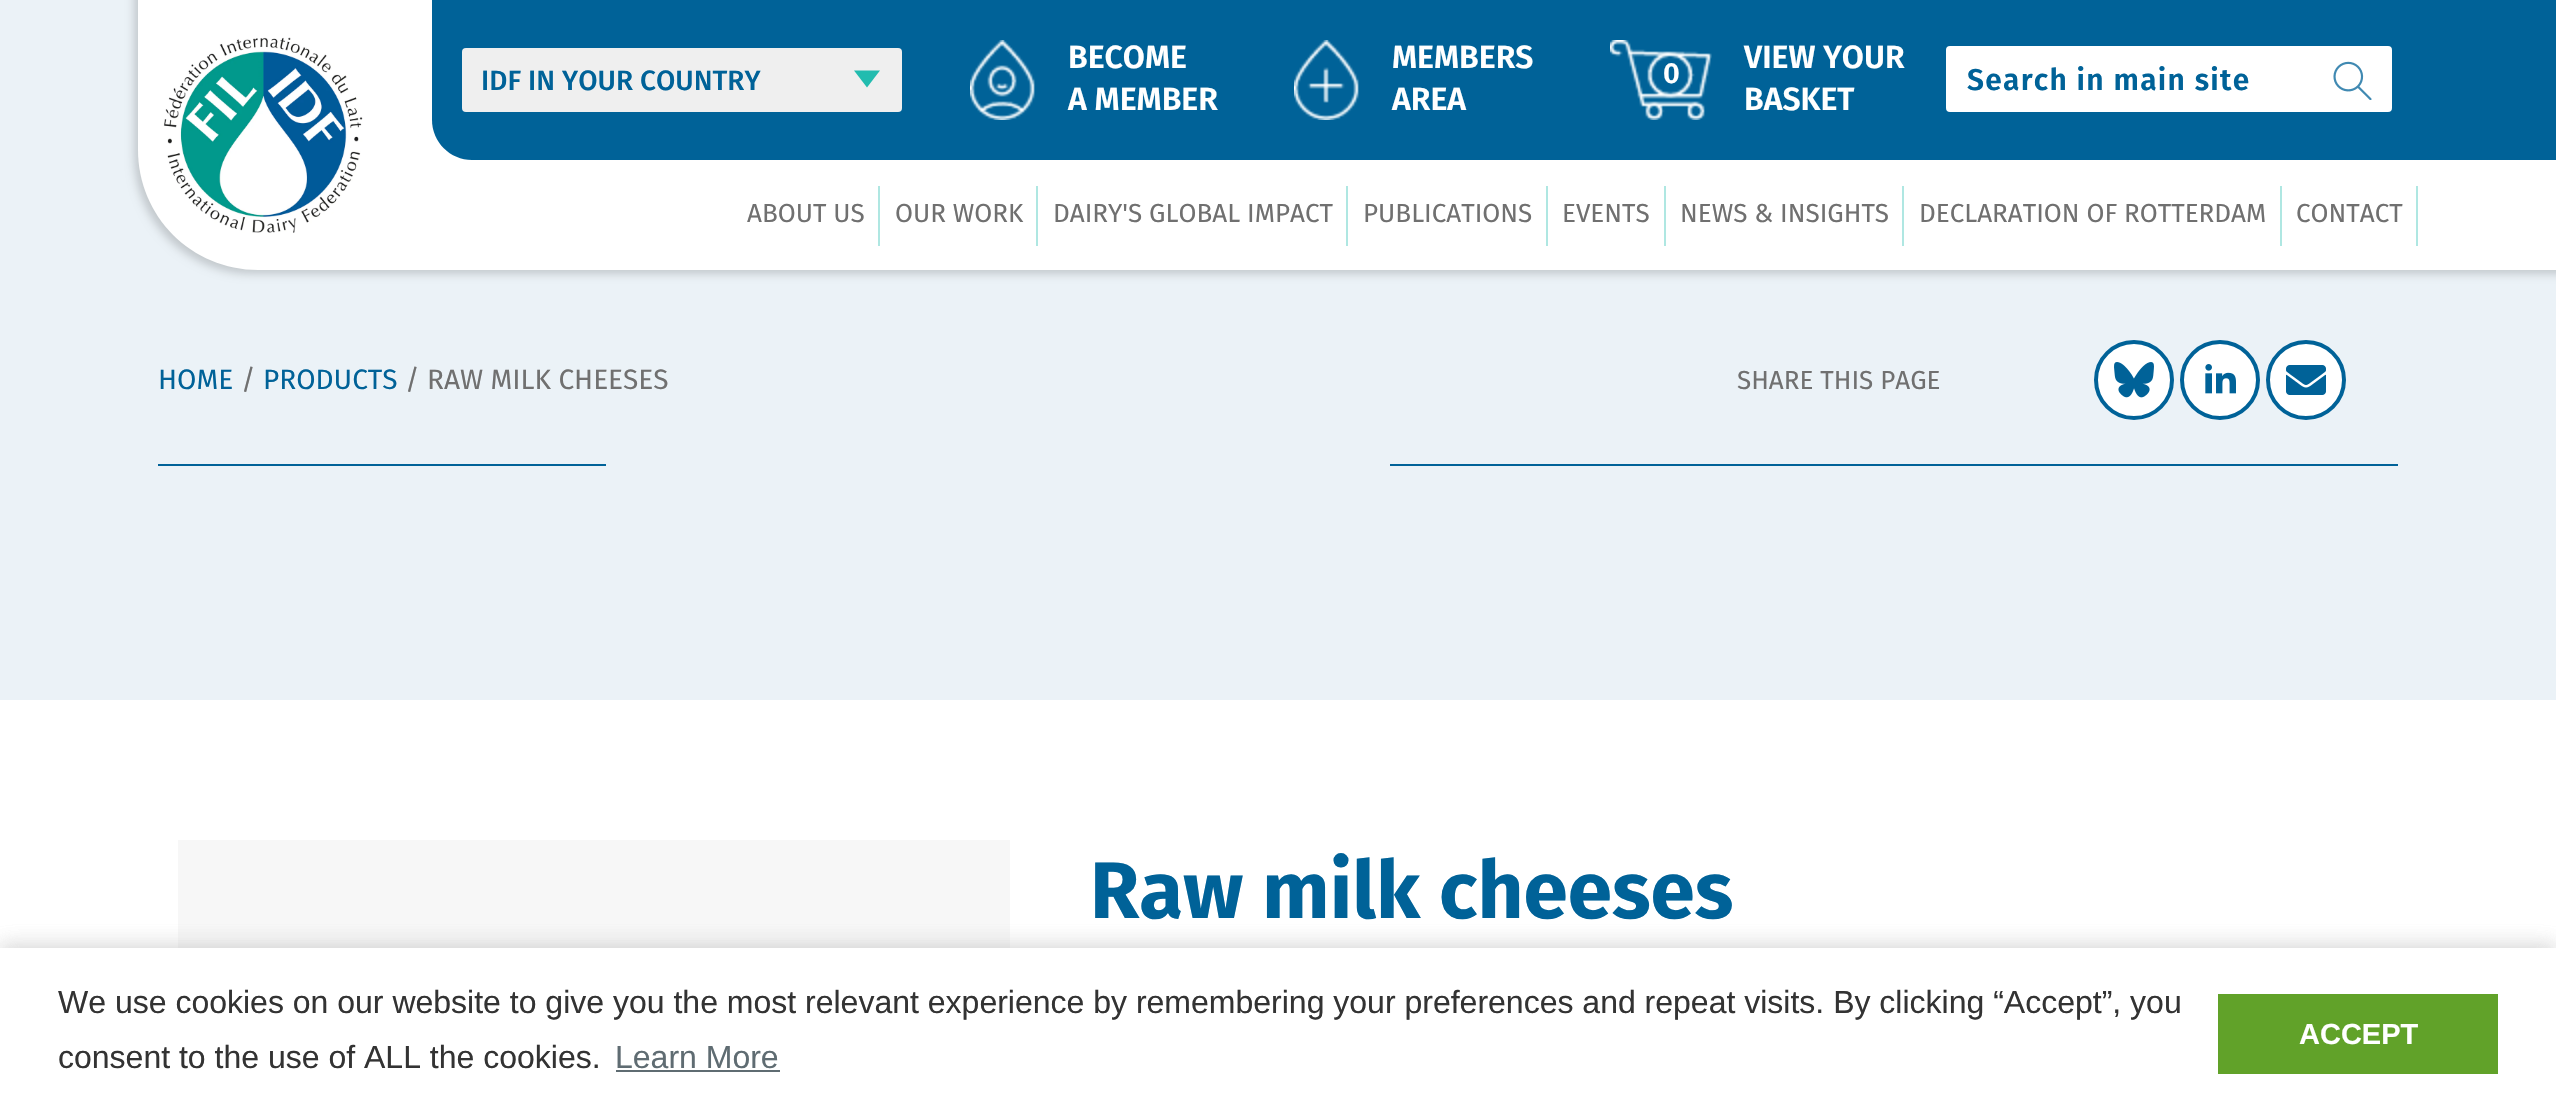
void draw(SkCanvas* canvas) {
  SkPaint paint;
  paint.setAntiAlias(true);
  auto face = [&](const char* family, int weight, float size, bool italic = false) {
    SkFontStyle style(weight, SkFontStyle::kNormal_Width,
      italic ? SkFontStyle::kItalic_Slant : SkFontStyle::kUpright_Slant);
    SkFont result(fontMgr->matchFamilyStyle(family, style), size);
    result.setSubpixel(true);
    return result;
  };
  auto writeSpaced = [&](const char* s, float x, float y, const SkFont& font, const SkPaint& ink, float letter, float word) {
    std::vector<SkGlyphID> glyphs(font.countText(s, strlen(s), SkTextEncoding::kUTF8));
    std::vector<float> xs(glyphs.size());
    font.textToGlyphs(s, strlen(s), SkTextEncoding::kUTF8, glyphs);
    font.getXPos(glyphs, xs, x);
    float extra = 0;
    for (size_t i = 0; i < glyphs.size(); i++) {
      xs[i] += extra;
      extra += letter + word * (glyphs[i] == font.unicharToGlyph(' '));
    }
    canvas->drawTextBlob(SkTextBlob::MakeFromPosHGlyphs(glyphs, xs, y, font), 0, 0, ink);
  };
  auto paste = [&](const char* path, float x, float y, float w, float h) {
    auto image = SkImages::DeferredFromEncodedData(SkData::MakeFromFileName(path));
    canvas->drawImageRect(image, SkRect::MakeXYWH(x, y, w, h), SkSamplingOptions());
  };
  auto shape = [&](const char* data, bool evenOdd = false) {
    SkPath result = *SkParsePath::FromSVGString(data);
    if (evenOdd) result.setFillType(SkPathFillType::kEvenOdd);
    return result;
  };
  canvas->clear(0xffffffff);
  paint.setColor(0xffebf2f7);
  canvas->drawRect(SkRect::MakeXYWH(0, 0, 2556, 700), paint);
  paint.setColor(0x2b000000);
  paint.setMaskFilter(SkMaskFilter::MakeBlur(kNormal_SkBlurStyle, 4));
  canvas->drawRoundRect(SkRect::MakeXYWH(134, -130, 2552, 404), 118, 118, paint);
  paint.setMaskFilter(nullptr);
  paint.setColor(0xffffffff);
  canvas->drawPath(shape("M138-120H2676V270H258C191.5 270 138 216.5 138 150Z"), paint);
  paste("img/1.png", 163, 37, 200, 196);
  paint.setColor(0xff006298);
  canvas->drawPath(shape("M432 0H2418V160H472C450 160 432 142 432 120Z"), paint);
  paint.setColor(0xffefefef);
  canvas->drawRoundRect(SkRect::MakeXYWH(462, 48, 440, 64), 4, 4, paint);
  paint.setColor(0xff22bcaf);
  canvas->drawPath(shape("M867 87.5L854 70.5H880Z"), paint);
  paste("img/2.png", 970, 40, 65, 80);
  paste("img/3.png", 1294, 40, 65, 80);
  paste("img/4.png", 1610, 40, 102, 80);
  paint.setColor(0xffffffff);
  canvas->drawRoundRect(SkRect::MakeXYWH(1945, 45, 448, 68), 5, 5, paint);
  paint.setStroke(true);
  paint.setStrokeWidth(2);
  paint.setColor(0xff006298);
  canvas->drawRoundRect(SkRect::MakeXYWH(1945, 45, 448, 68), 5, 5, paint);
  paste("img/5.png", 2333, 61, 39, 39);
  paint.setStroke(false);
  {
    const struct { float x, y, w, h; SkColor color; } items[] = {
      {2418, 0, 138, 160, 0xff006298},
      {878, 186, 2, 60, 0xffafe7e2},
      {1036, 186, 2, 60, 0xffafe7e2},
      {1346, 186, 2, 60, 0xffafe7e2},
      {1546, 186, 2, 60, 0xffafe7e2},
      {1664, 186, 2, 60, 0xffafe7e2},
      {1902, 186, 2, 60, 0xffafe7e2},
      {2280, 186, 2, 60, 0xffafe7e2},
      {2416, 186, 2, 60, 0xffafe7e2},
      {158, 464, 448, 2, 0xff006298},
    };
    for (auto [x, y, w, h, color] : items) {
      paint.setColor(color);
      canvas->drawRect(SkRect::MakeXYWH(x, y, w, h), paint);
    }
  }
  paint.setColor(0xffffffff);
  canvas->drawCircle(2134, 380, 38, paint);
  paint.setStroke(true);
  paint.setStrokeWidth(4);
  paint.setColor(0xff006298);
  canvas->drawCircle(2134, 380, 38, paint);
  paste("img/6.png", 2114, 362, 40, 36);
  paint.setStroke(false);
  paint.setColor(0xffffffff);
  canvas->drawCircle(2220, 380, 38, paint);
  paint.setStroke(true);
  paint.setColor(0xff006298);
  canvas->drawCircle(2220, 380, 38, paint);
  paste("img/7.png", 2205, 364, 31, 30);
  paint.setStroke(false);
  paint.setColor(0xffffffff);
  canvas->drawCircle(2306, 380, 38, paint);
  paint.setStroke(true);
  paint.setColor(0xff006298);
  canvas->drawCircle(2306, 380, 38, paint);
  paste("img/8.png", 2286, 365, 40, 30);
  paint.setStroke(false);
  canvas->drawRect(SkRect::MakeXYWH(1390, 464, 1008, 2), paint);
  paint.setColor(0xfff7f7f7);
  canvas->drawRect(SkRect::MakeXYWH(178, 840, 832, 108), paint);
  paint.setColor(0x4dacabab);
  paint.setMaskFilter(SkMaskFilter::MakeBlur(kNormal_SkBlurStyle, 10));
  canvas->drawRect(SkRect::MakeXYWH(0, 946, 2556, 172), paint);
  paint.setMaskFilter(nullptr);
  paint.setMaskFilter(SkMaskFilter::MakeBlur(kNormal_SkBlurStyle, 10));
  canvas->drawRect(SkRect::MakeXYWH(0, 946, 2556, 172), paint);
  paint.setMaskFilter(nullptr);
  {
    const struct { float x, y, w, h; SkColor color; } items[] = {
      {0, 948, 2556, 171, 0xffffffff},
      {616, 1070, 164, 2, 0xff5f6c72},
      {2218, 994, 280, 80, 0xff61a229},
    };
    for (auto [x, y, w, h, color] : items) {
      paint.setColor(color);
      canvas->drawRect(SkRect::MakeXYWH(x, y, w, h), paint);
    }
  }
  auto f0 = face("Fira Sans", 500, 28);
  paint.setColor(0xff006298);
  canvas->drawString("IDF IN YOUR COUNTRY", 481, 90, f0, paint);
  auto f1 = face("Fira Sans", 600, 32);
  paint.setColor(0xffffffff);
  {
    const struct { const char* s; float x, y; } items[] = {
      {"BECOME", 1068, 68},
      {"A MEMBER", 1068, 110},
      {"MEMBERS", 1392, 68},
      {"AREA", 1392, 110},
      {"VIEW YOUR", 1744, 68},
      {"BASKET", 1744, 110},
    };
    for (auto [s, x, y] : items) {
      canvas->drawString(s, x, y, f1, paint);
    }
  }
  auto f2 = face("Fira Sans", 600, 29);
  canvas->drawString("0", 1663, 83, f2, paint);
  auto f3 = face("Fira Sans", 600, 30);
  paint.setColor(0xff006298);
  writeSpaced("Search in main site", 1967, 90, f3, paint, 1.25f, 0);
  auto f4 = face("Fira Sans", 400, 26);
  paint.setColor(0xff707070);
  {
    const struct { const char* s; float x, y; } items[] = {
      {"ABOUT US", 747, 222},
      {"OUR WORK", 895, 222},
      {"DAIRY'S GLOBAL IMPACT", 1053, 222},
      {"PUBLICATIONS", 1363, 222},
      {"EVENTS", 1562, 222},
      {"NEWS & INSIGHTS", 1680, 222},
      {"DECLARATION OF ROTTERDAM", 1919, 222},
      {"CONTACT", 2296, 222},
    };
    for (auto [s, x, y] : items) {
      canvas->drawString(s, x, y, f4, paint);
    }
  }
  auto f5 = face("Fira Sans", 400, 28);
  paint.setColor(0xff006298);
  canvas->drawString("HOME", 158, 389, f5, paint);
  paint.setColor(0xff707070);
  canvas->drawString("/", 241, 389, f5, paint);
  paint.setColor(0xff006298);
  canvas->drawString("PRODUCTS", 263, 389, f5, paint);
  paint.setColor(0xff707070);
  canvas->drawString("/ RAW MILK CHEESES", 405, 389, f5, paint);
  canvas->drawString("SHARE THIS PAGE", 1737, 389, f4, paint);
  auto f6 = face("Fira Sans", 700, 80);
  paint.setColor(0xff006298);
  canvas->drawString("Raw milk cheeses", 1090, 918, f6, paint);
  auto f7 = face("Liberation Sans", 400, 32);
  paint.setColor(0xff333333);
  canvas->drawString("We use cookies on our website to give you the most relevant experience by remembering your preferences and repeat visits. By clicking “Accept”, you", 58, 1013, f7, paint);
  canvas->drawString("consent to the use of ALL the cookies.", 58, 1068, f7, paint);
  paint.setColor(0xff5f6c72);
  canvas->drawString("Learn More", 615, 1068, f7, paint);
  auto f8 = face("Liberation Sans", 700, 29);
  paint.setColor(0xffffffff);
  canvas->drawString("ACCEPT", 2299, 1044, f8, paint);
}
